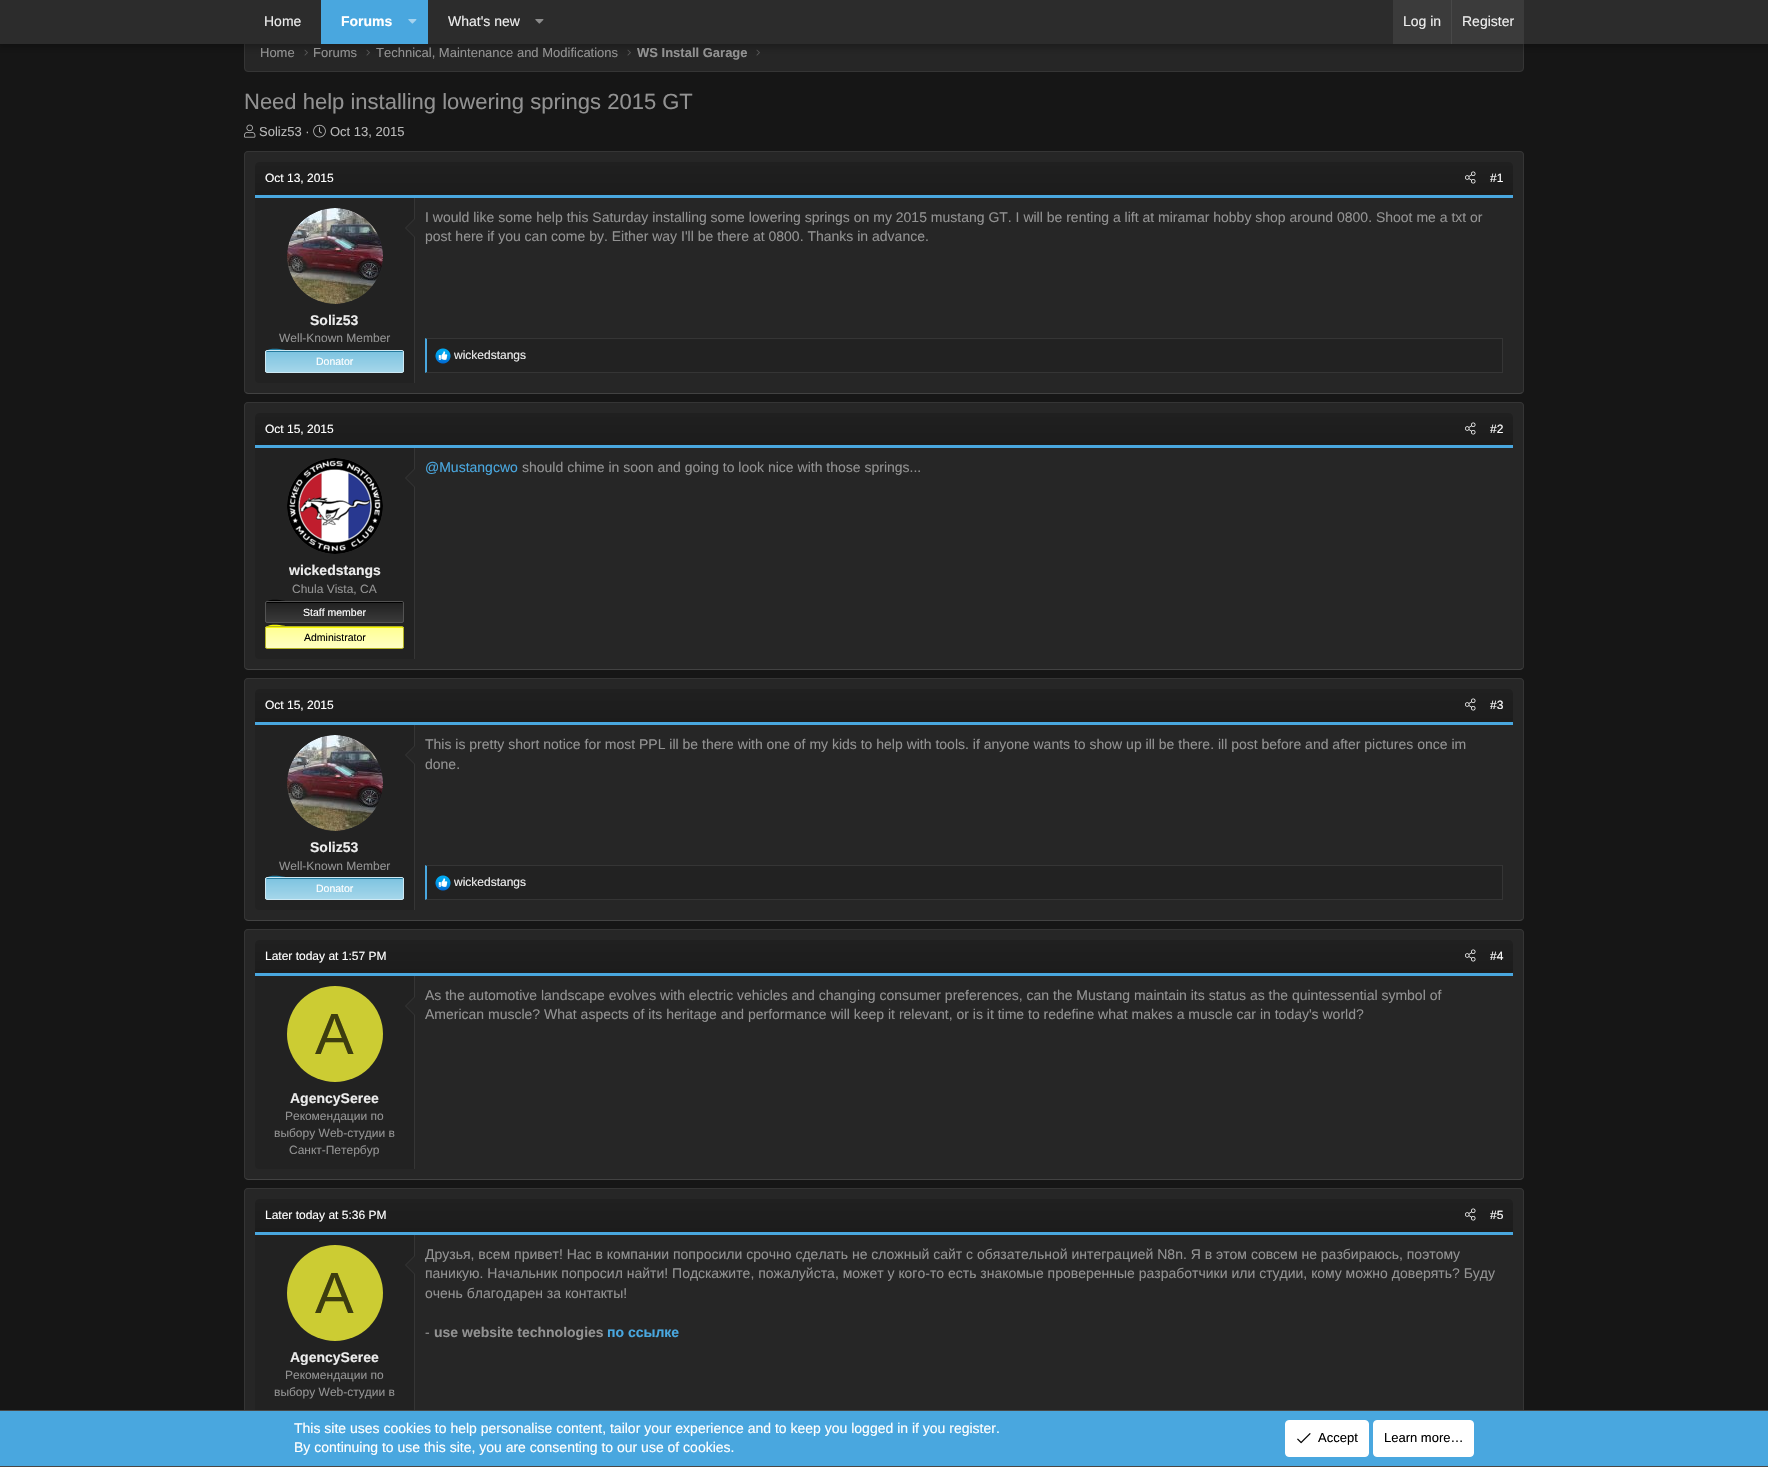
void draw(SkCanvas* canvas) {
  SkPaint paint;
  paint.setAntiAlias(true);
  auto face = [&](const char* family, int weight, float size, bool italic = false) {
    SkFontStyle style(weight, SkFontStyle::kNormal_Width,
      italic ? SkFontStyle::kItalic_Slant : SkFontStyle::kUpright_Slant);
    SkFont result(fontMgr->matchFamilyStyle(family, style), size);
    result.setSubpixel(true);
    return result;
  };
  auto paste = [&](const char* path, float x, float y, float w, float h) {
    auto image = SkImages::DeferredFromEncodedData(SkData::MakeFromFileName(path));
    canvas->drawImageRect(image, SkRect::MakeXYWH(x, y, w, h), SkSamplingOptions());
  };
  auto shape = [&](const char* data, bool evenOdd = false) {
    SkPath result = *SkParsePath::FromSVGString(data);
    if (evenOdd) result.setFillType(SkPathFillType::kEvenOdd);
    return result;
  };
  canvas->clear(0xff161616);
  paint.setColor(0xff262626);
  canvas->drawRoundRect(SkRect::MakeXYWH(244.5f, 34.5f, 1279, 37), 3.5f, 3.5f, paint);
  paint.setStroke(true);
  paint.setStrokeWidth(1);
  paint.setColor(0xff353535);
  canvas->drawRoundRect(SkRect::MakeXYWH(244.5f, 34.5f, 1279, 37), 3.5f, 3.5f, paint);
  paste("img/3.png", 304, 49, 4, 7);
  paste("img/3.png", 366, 49, 4, 7);
  paste("img/3.png", 627, 49, 4, 7);
  paste("img/3.png", 756, 49, 4, 7);
  paint.setStroke(false);
  paint.setColor(0x4d000000);
  paint.setMaskFilter(SkMaskFilter::MakeBlur(kNormal_SkBlurStyle, 4));
  canvas->drawRect(SkRect::MakeXYWH(-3, -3, 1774, 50), paint);
  paint.setMaskFilter(nullptr);
  paint.setColor(0xff2c2c2c);
  canvas->drawRect(SkRect::MakeXYWH(0, 0, 1768, 44), paint);
  paint.setColor(0xff49a7df);
  canvas->drawRect(SkRect::MakeXYWH(321, 0, 107, 44), paint);
  paste("img/1.png", 408, 19, 9, 5);
  paste("img/2.png", 535, 19, 9, 5);
  paint.setColor(0xff3b3b3b);
  canvas->drawRect(SkRect::MakeXYWH(1393, 0, 131, 44), paint);
  paint.setColor(0xff484848);
  canvas->drawRect(SkRect::MakeXYWH(1451, 0, 1, 44), paint);
  paste("img/4.png", 244, 124, 12, 14);
  paste("img/5.png", 313, 124, 13, 14);
  paint.setColor(0xff262626);
  canvas->drawRoundRect(SkRect::MakeXYWH(244, 151, 1280, 243), 4, 4, paint);
  paint.setStroke(true);
  paint.setColor(0xff424242);
  canvas->drawPath(shape("M1522.5 392.5L1520 393.5H248L245.5 392.5"), paint);
  paint.setColor(0xff353535);
  canvas->drawPath(shape("M245.5 392.5C245 392 244.5 391 244.5 390V155C244.5 154 245 153 245.5 152.5C246 152 247 151.5 248 151.5H1520C1521 151.5 1522 152 1522.5 152.5C1523 153 1523.5 154 1523.5 155V390C1523.5 391 1523 392 1522.5 392.5"), paint);
  paint.setStroke(false);
  {
    const SkColor colors[] = {0xff202020, 0xff1c1c1c};
    const float stops[] = {0, 1};
    const SkPoint ends[] = {{884, 162}, {884, 195}};
    paint.setShader(SkGradientShader::MakeLinear(ends, colors, stops, 2, SkTileMode::kClamp));
    paint.setAlpha(255);
  }
  canvas->drawPath(shape("M259 162H1509C1511 162 1513 164 1513 166V195H255V166C255 164 257 162 259 162Z"), paint);
  paint.setShader(nullptr);
  paint.setColor(0xff49a7df);
  canvas->drawRect(SkRect::MakeXYWH(255, 195, 1258, 3), paint);
  paste("img/6.png", 1465, 171, 11, 13);
  paint.setColor(0xff222222);
  canvas->drawPath(shape("M255 198H415V383H258C256.5 383 255 381.5 255 380Z"), paint);
  paint.setColor(0xff353535);
  canvas->drawRect(SkRect::MakeXYWH(414, 198, 1, 185), paint);
  paint.setColor(0xff262626);
  canvas->drawCircle(335, 256, 48, paint);
  paste("img/7.png", 287, 208, 96, 96);
  paint.setColor(0xff353535);
  canvas->drawPath(shape("M415 218V238L405 228Z"), paint);
  paint.setColor(0xff262626);
  canvas->drawPath(shape("M415 219V237L406 228Z"), paint);
  canvas->save();
  canvas->clipPath(shape("M267 350H402C403 350 404 351 404 352V371C404 372 403 373 402 373H267C266 373 265 372 265 371V352C265 351 266 350 267 350Z"), true);
  {
    const SkColor colors[] = {0xff7cc3e0, 0xffa5d6ea};
    const float stops[] = {0, 1};
    const SkPoint ends[] = {{335, 351}, {335, 372}};
    paint.setShader(SkGradientShader::MakeLinear(ends, colors, stops, 2, SkTileMode::kClamp));
    paint.setAlpha(255);
  }
  canvas->drawRect(SkRect::MakeXYWH(265, 351, 139, 21), paint);
  canvas->restore();
  paint.setShader(nullptr);
  paint.setColor(0xff257b9e);
  canvas->drawPath(shape("M267 352H402C403 352 403 352 403 353V351H290C289 351 266 345 266 353C266 352 266 352 267 352Z"), paint);
  paint.setStroke(true);
  paint.setColor(0xffcee9f4);
  canvas->drawRoundRect(SkRect::MakeXYWH(265.5f, 350.5f, 138, 22), 1.5f, 1.5f, paint);
  paint.setStroke(false);
  paint.setColor(0xff222222);
  canvas->drawRect(SkRect::MakeXYWH(427, 339, 1075, 33), paint);
  paint.setColor(0xff353535);
  canvas->drawPath(shape("M425 338H1503L1502 339H427Z"), paint);
  canvas->drawRect(SkRect::MakeXYWH(1502, 338, 1, 35), paint);
  canvas->drawPath(shape("M1503 373H425L427 372H1502Z"), paint);
  paint.setColor(0xff49a7df);
  canvas->drawPath(shape("M425 373V338L427 339V372Z"), paint);
  paste("img/8.png", 435, 348, 16, 16);
  paint.setColor(0xff262626);
  canvas->drawRoundRect(SkRect::MakeXYWH(244, 402, 1280, 268), 4, 4, paint);
  paint.setStroke(true);
  paint.setColor(0xff424242);
  canvas->drawPath(shape("M1522.5 668.5L1520 669.5H248L245.5 668.5"), paint);
  paint.setColor(0xff353535);
  canvas->drawPath(shape("M245.5 668.5C245 668 244.5 667 244.5 666V406C244.5 405 245 404 245.5 403.5C246 403 247 402.5 248 402.5H1520C1521 402.5 1522 403 1522.5 403.5C1523 404 1523.5 405 1523.5 406V666C1523.5 667 1523 668 1522.5 668.5"), paint);
  paint.setStroke(false);
  {
    const SkColor colors[] = {0xff202020, 0xff1c1c1c};
    const float stops[] = {0, 1};
    const SkPoint ends[] = {{884, 413}, {884, 445}};
    paint.setShader(SkGradientShader::MakeLinear(ends, colors, stops, 2, SkTileMode::kClamp));
    paint.setAlpha(255);
  }
  canvas->drawPath(shape("M259 413H1509C1511 413 1513 415 1513 417V445H255V417C255 415 257 413 259 413Z"), paint);
  paint.setShader(nullptr);
  paint.setColor(0xff49a7df);
  canvas->drawRect(SkRect::MakeXYWH(255, 445, 1258, 3), paint);
  paste("img/9.png", 1465, 422, 11, 13);
  paint.setColor(0xff222222);
  canvas->drawPath(shape("M255 448H415V659H258C256.5 659 255 657.5 255 656Z"), paint);
  paint.setColor(0xff353535);
  canvas->drawRect(SkRect::MakeXYWH(414, 448, 1, 211), paint);
  paint.setColor(0xff262626);
  canvas->drawCircle(335, 506, 48, paint);
  paste("img/10.png", 287, 458, 96, 96);
  paint.setColor(0xff353535);
  canvas->drawPath(shape("M415 468V488L405 478Z"), paint);
  paint.setColor(0xff262626);
  canvas->drawPath(shape("M415 469V487L406 478Z"), paint);
  canvas->save();
  canvas->clipPath(shape("M267 601H402C403 601 404 602 404 603V621C404 622 403 623 402 623H267C266 623 265 622 265 621V603C265 602 266 601 267 601Z"), true);
  {
    const SkColor colors[] = {0xff202020, 0xff3a3a3a};
    const float stops[] = {0, 1};
    const SkPoint ends[] = {{335, 602}, {335, 622}};
    paint.setShader(SkGradientShader::MakeLinear(ends, colors, stops, 2, SkTileMode::kClamp));
    paint.setAlpha(255);
  }
  canvas->drawRect(SkRect::MakeXYWH(265, 602, 139, 20), paint);
  canvas->restore();
  paint.setShader(nullptr);
  paint.setColor(0xff000000);
  canvas->drawPath(shape("M267 603H402C403 603 403 603 403 604V602H290C289 602 266 596 266 604C266 603 266 603 267 603Z"), paint);
  paint.setStroke(true);
  paint.setColor(0xff535353);
  canvas->drawRoundRect(SkRect::MakeXYWH(265.5f, 601.5f, 138, 21), 1.5f, 1.5f, paint);
  canvas->save();
  canvas->clipPath(shape("M267 626H402C403 626 404 627 404 628V647C404 648 403 649 402 649H267C266 649 265 648 265 647V628C265 627 266 626 267 626Z"), true);
  paint.setStroke(false);
  {
    const SkColor colors[] = {0xffffff91, 0xffffffc4};
    const float stops[] = {0, 1};
    const SkPoint ends[] = {{335, 627}, {335, 648}};
    paint.setShader(SkGradientShader::MakeLinear(ends, colors, stops, 2, SkTileMode::kClamp));
    paint.setAlpha(255);
  }
  canvas->drawRect(SkRect::MakeXYWH(265, 627, 139, 21), paint);
  canvas->restore();
  paint.setShader(nullptr);
  paint.setColor(0xfff7f700);
  canvas->drawPath(shape("M267 628H402C403 628 403 628 403 629V627H290C289 627 266 621 266 629C266 628 266 628 267 628Z"), paint);
  paint.setStroke(true);
  paint.setColor(0xffb3b325);
  canvas->drawRoundRect(SkRect::MakeXYWH(265.5f, 626.5f, 138, 22), 1.5f, 1.5f, paint);
  paint.setStroke(false);
  paint.setColor(0xff262626);
  canvas->drawRoundRect(SkRect::MakeXYWH(244, 678, 1280, 243), 4, 4, paint);
  paint.setStroke(true);
  paint.setColor(0xff424242);
  canvas->drawPath(shape("M1522.5 919.5L1520 920.5H248L245.5 919.5"), paint);
  paint.setColor(0xff353535);
  canvas->drawPath(shape("M245.5 919.5C245 919 244.5 918 244.5 917V682C244.5 681 245 680 245.5 679.5C246 679 247 678.5 248 678.5H1520C1521 678.5 1522 679 1522.5 679.5C1523 680 1523.5 681 1523.5 682V917C1523.5 918 1523 919 1522.5 919.5"), paint);
  paint.setStroke(false);
  {
    const SkColor colors[] = {0xff202020, 0xff1c1c1c};
    const float stops[] = {0, 1};
    const SkPoint ends[] = {{884, 689}, {884, 722}};
    paint.setShader(SkGradientShader::MakeLinear(ends, colors, stops, 2, SkTileMode::kClamp));
    paint.setAlpha(255);
  }
  canvas->drawPath(shape("M259 689H1509C1511 689 1513 691 1513 693V722H255V693C255 691 257 689 259 689Z"), paint);
  paint.setShader(nullptr);
  paint.setColor(0xff49a7df);
  canvas->drawRect(SkRect::MakeXYWH(255, 722, 1258, 3), paint);
  paste("img/6.png", 1465, 698, 11, 13);
  paint.setColor(0xff222222);
  canvas->drawPath(shape("M255 725H415V910H258C256.5 910 255 908.5 255 907Z"), paint);
  paint.setColor(0xff353535);
  canvas->drawRect(SkRect::MakeXYWH(414, 725, 1, 185), paint);
  paint.setColor(0xff262626);
  canvas->drawCircle(335, 783, 48, paint);
  paste("img/11.png", 287, 735, 96, 96);
  paint.setColor(0xff353535);
  canvas->drawPath(shape("M415 745V765L405 755Z"), paint);
  paint.setColor(0xff262626);
  canvas->drawPath(shape("M415 746V764L406 755Z"), paint);
  canvas->save();
  canvas->clipPath(shape("M267 877H402C403 877 404 878 404 879V898C404 899 403 900 402 900H267C266 900 265 899 265 898V879C265 878 266 877 267 877Z"), true);
  {
    const SkColor colors[] = {0xff7cc3e0, 0xffa5d6ea};
    const float stops[] = {0, 1};
    const SkPoint ends[] = {{335, 878}, {335, 899}};
    paint.setShader(SkGradientShader::MakeLinear(ends, colors, stops, 2, SkTileMode::kClamp));
    paint.setAlpha(255);
  }
  canvas->drawRect(SkRect::MakeXYWH(265, 878, 139, 21), paint);
  canvas->restore();
  paint.setShader(nullptr);
  paint.setColor(0xff257b9e);
  canvas->drawPath(shape("M267 879H402C403 879 403 879 403 880V878H290C289 878 266 872 266 880C266 879 266 879 267 879Z"), paint);
  paint.setStroke(true);
  paint.setColor(0xffcee9f4);
  canvas->drawRoundRect(SkRect::MakeXYWH(265.5f, 877.5f, 138, 22), 1.5f, 1.5f, paint);
  paint.setStroke(false);
  paint.setColor(0xff222222);
  canvas->drawRect(SkRect::MakeXYWH(427, 866, 1075, 33), paint);
  paint.setColor(0xff353535);
  canvas->drawPath(shape("M425 865H1503L1502 866H427Z"), paint);
  canvas->drawRect(SkRect::MakeXYWH(1502, 865, 1, 35), paint);
  canvas->drawPath(shape("M1503 900H425L427 899H1502Z"), paint);
  paint.setColor(0xff49a7df);
  canvas->drawPath(shape("M425 900V865L427 866V899Z"), paint);
  paste("img/8.png", 435, 875, 16, 16);
  paint.setColor(0xff262626);
  canvas->drawRoundRect(SkRect::MakeXYWH(244, 929, 1280, 251), 4, 4, paint);
  paint.setStroke(true);
  paint.setColor(0xff424242);
  canvas->drawPath(shape("M1522.5 1178.5L1520 1179.5H248L245.5 1178.5"), paint);
  paint.setColor(0xff353535);
  canvas->drawPath(shape("M245.5 1178.5C245 1178 244.5 1177 244.5 1176V933C244.5 932 245 931 245.5 930.5C246 930 247 929.5 248 929.5H1520C1521 929.5 1522 930 1522.5 930.5C1523 931 1523.5 932 1523.5 933V1176C1523.5 1177 1523 1178 1522.5 1178.5"), paint);
  paint.setStroke(false);
  {
    const SkColor colors[] = {0xff202020, 0xff1c1c1c};
    const float stops[] = {0, 1};
    const SkPoint ends[] = {{884, 940}, {884, 973}};
    paint.setShader(SkGradientShader::MakeLinear(ends, colors, stops, 2, SkTileMode::kClamp));
    paint.setAlpha(255);
  }
  canvas->drawPath(shape("M259 940H1509C1511 940 1513 942 1513 944V973H255V944C255 942 257 940 259 940Z"), paint);
  paint.setShader(nullptr);
  paint.setColor(0xff49a7df);
  canvas->drawRect(SkRect::MakeXYWH(255, 973, 1258, 3), paint);
  paste("img/6.png", 1465, 949, 11, 13);
  paint.setColor(0xff222222);
  canvas->drawPath(shape("M255 976H415V1169H258C256.5 1169 255 1167.5 255 1166Z"), paint);
  paint.setColor(0xff353535);
  canvas->drawRect(SkRect::MakeXYWH(414, 976, 1, 193), paint);
  canvas->drawPath(shape("M415 996V1016L405 1006Z"), paint);
  paint.setColor(0xff262626);
  canvas->drawPath(shape("M415 997V1015L406 1006Z"), paint);
  paint.setColor(0xffcccc33);
  canvas->drawCircle(335, 1034, 48, paint);
  paint.setColor(0xff262626);
  canvas->drawRoundRect(SkRect::MakeXYWH(244, 1188, 1280, 251), 4, 4, paint);
  paint.setStroke(true);
  paint.setColor(0xff353535);
  canvas->drawPath(shape("M245.5 1437.5C245 1437 244.5 1436 244.5 1435V1192C244.5 1191 245 1190 245.5 1189.5C246 1189 247 1188.5 248 1188.5H1520C1521 1188.5 1522 1189 1522.5 1189.5C1523 1190 1523.5 1191 1523.5 1192V1435C1523.5 1436 1523 1437 1522.5 1437.5"), paint);
  paint.setStroke(false);
  {
    const SkColor colors[] = {0xff202020, 0xff1c1c1c};
    const float stops[] = {0, 1};
    const SkPoint ends[] = {{884, 1199}, {884, 1232}};
    paint.setShader(SkGradientShader::MakeLinear(ends, colors, stops, 2, SkTileMode::kClamp));
    paint.setAlpha(255);
  }
  canvas->drawPath(shape("M259 1199H1509C1511 1199 1513 1201 1513 1203V1232H255V1203C255 1201 257 1199 259 1199Z"), paint);
  paint.setShader(nullptr);
  paint.setColor(0xff49a7df);
  canvas->drawRect(SkRect::MakeXYWH(255, 1232, 1258, 3), paint);
  paste("img/6.png", 1465, 1208, 11, 13);
  paint.setColor(0xff222222);
  canvas->drawRect(SkRect::MakeXYWH(255, 1235, 159, 175), paint);
  paint.setColor(0xff353535);
  canvas->drawRect(SkRect::MakeXYWH(414, 1235, 1, 175), paint);
  canvas->drawPath(shape("M415 1255V1275L405 1265Z"), paint);
  paint.setColor(0xff262626);
  canvas->drawPath(shape("M415 1256V1274L406 1265Z"), paint);
  paint.setColor(0xffcccc33);
  canvas->drawCircle(335, 1293, 48, paint);
  {
    const struct { float x, y, w, h; SkColor color; } items[] = {
      {0, 1411, 1768, 55, 0xff49a7df},
      {0, 1410, 1768, 1, 0xff484848},
      {0, 1466, 1768, 1, 0xff484848},
    };
    for (auto [x, y, w, h, color] : items) {
      paint.setColor(color);
      canvas->drawRect(SkRect::MakeXYWH(x, y, w, h), paint);
    }
  }
  paint.setColor(0xffffffff);
  canvas->drawRoundRect(SkRect::MakeXYWH(1285.5f, 1420.5f, 83, 36), 3.5f, 3.5f, paint);
  paint.setStroke(true);
  canvas->drawRoundRect(SkRect::MakeXYWH(1285.5f, 1420.5f, 83, 36), 3.5f, 3.5f, paint);
  paste("img/12.png", 1297, 1433, 14, 11);
  paint.setStroke(false);
  canvas->drawRoundRect(SkRect::MakeXYWH(1373.5f, 1420.5f, 100, 36), 3.5f, 3.5f, paint);
  paint.setStroke(true);
  canvas->drawRoundRect(SkRect::MakeXYWH(1373.5f, 1420.5f, 100, 36), 3.5f, 3.5f, paint);
  auto f0 = face("Liberation Sans", 400, 14);
  paint.setStroke(false);
  paint.setColor(0xffececec);
  canvas->drawString("Home", 264, 26, f0, paint);
  auto f1 = face("Liberation Sans", 700, 14);
  paint.setColor(0xffffffff);
  canvas->drawString("Forums", 341, 26, f1, paint);
  paint.setColor(0xffececec);
  {
    const struct { const char* s; float x, y; } items[] = {
      {"What's new", 448, 26},
      {"Log in", 1403, 26},
      {"Register", 1462, 26},
    };
    for (auto [s, x, y] : items) {
      canvas->drawString(s, x, y, f0, paint);
    }
  }
  auto f2 = face("Liberation Sans", 400, 13);
  paint.setColor(0xff929292);
  {
    const struct { const char* s; float x, y; } items[] = {
      {"Home", 260, 57},
      {"Forums", 313, 57},
      {"Technical, Maintenance and Modifications", 376, 57},
    };
    for (auto [s, x, y] : items) {
      canvas->drawString(s, x, y, f2, paint);
    }
  }
  auto f3 = face("Liberation Sans", 700, 13);
  canvas->drawString("WS Install Garage", 637, 57, f3, paint);
  auto f4 = face("Liberation Sans", 400, 22);
  canvas->drawString("Need help installing lowering springs 2015 GT", 244, 109, f4, paint);
  paint.setColor(0xffb8b8b8);
  canvas->drawString("Soliz53 ·", 259, 136, f2, paint);
  canvas->drawString("Oct 13, 2015", 330, 136, f2, paint);
  auto f5 = face("Liberation Sans", 400, 12);
  paint.setColor(0xffffffff);
  canvas->drawString("Oct 13, 2015", 265, 182, f5, paint);
  canvas->drawString("#1", 1490, 182, f5, paint);
  paint.setColor(0xffececec);
  canvas->drawString("Soliz53", 310, 325, f1, paint);
  paint.setColor(0xff929292);
  canvas->drawString("Well-Known Member", 279, 342, f5, paint);
  auto f6 = face("Liberation Sans", 400, 10.5f);
  paint.setColor(0xffffffff);
  canvas->drawString("Donator", 316, 365, f6, paint);
  paint.setColor(0xff929292);
  canvas->drawString("I would like some help this Saturday installing some lowering springs on my 2015 mustang GT. I will be renting a lift at miramar hobby shop around 0800. Shoot me a txt or", 425, 222, f0, paint);
  canvas->drawString("post here if you can come by. Either way I'll be there at 0800. Thanks in advance.", 425, 241, f0, paint);
  paint.setColor(0xffececec);
  canvas->drawString("wickedstangs", 454, 359, f5, paint);
  paint.setColor(0xffffffff);
  canvas->drawString("Oct 15, 2015", 265, 433, f5, paint);
  canvas->drawString("#2", 1490, 433, f5, paint);
  paint.setColor(0xff49a7df);
  canvas->drawString("@Mustangcwo", 425, 472, f0, paint);
  paint.setColor(0xff929292);
  canvas->drawString("should chime in soon and going to look nice with those springs...", 522, 472, f0, paint);
  paint.setColor(0xffececec);
  canvas->drawString("wickedstangs", 289, 575, f1, paint);
  paint.setColor(0xff929292);
  canvas->drawString("Chula Vista, CA", 292, 593, f5, paint);
  paint.setColor(0xffffffff);
  canvas->drawString("Staff member", 303, 616, f6, paint);
  paint.setColor(0xff000000);
  canvas->drawString("Administrator", 304, 641, f6, paint);
  paint.setColor(0xffffffff);
  canvas->drawString("Oct 15, 2015", 265, 709, f5, paint);
  canvas->drawString("#3", 1490, 709, f5, paint);
  paint.setColor(0xffececec);
  canvas->drawString("Soliz53", 310, 852, f1, paint);
  paint.setColor(0xff929292);
  canvas->drawString("Well-Known Member", 279, 870, f5, paint);
  paint.setColor(0xffffffff);
  canvas->drawString("Donator", 316, 892, f6, paint);
  paint.setColor(0xff929292);
  canvas->drawString("This is pretty short notice for most PPL ill be there with one of my kids to help with tools. if anyone wants to show up ill be there. ill post before and after pictures once im", 425, 749, f0, paint);
  canvas->drawString("done.", 425, 769, f0, paint);
  paint.setColor(0xffececec);
  canvas->drawString("wickedstangs", 454, 886, f5, paint);
  paint.setColor(0xffffffff);
  canvas->drawString("Later today at 1:57 PM", 265, 960, f5, paint);
  canvas->drawString("#4", 1490, 960, f5, paint);
  paint.setColor(0xff929292);
  canvas->drawString("As the automotive landscape evolves with electric vehicles and changing consumer preferences, can the Mustang maintain its status as the quintessential symbol of", 425, 1000, f0, paint);
  canvas->drawString("American muscle? What aspects of its heritage and performance will keep it relevant, or is it time to redefine what makes a muscle car in today's world?", 425, 1019, f0, paint);
  auto f7 = face("Liberation Sans", 400, 58);
  paint.setColor(0xff3d3d0f);
  canvas->drawString("A", 315, 1054, f7, paint);
  paint.setColor(0xffececec);
  canvas->drawString("AgencySeree", 290, 1103, f1, paint);
  paint.setColor(0xff929292);
  {
    const struct { const char* s; float x, y; } items[] = {
      {"Рекомендации по", 285, 1120},
      {"выбору Web-студии в", 274, 1137},
      {"Санкт-Петербур", 289, 1154},
    };
    for (auto [s, x, y] : items) {
      canvas->drawString(s, x, y, f5, paint);
    }
  }
  paint.setColor(0xffffffff);
  canvas->drawString("Later today at 5:36 PM", 265, 1219, f5, paint);
  canvas->drawString("#5", 1490, 1219, f5, paint);
  paint.setColor(0xff3d3d0f);
  canvas->drawString("A", 315, 1313, f7, paint);
  paint.setColor(0xffececec);
  canvas->drawString("AgencySeree", 290, 1362, f1, paint);
  paint.setColor(0xff929292);
  canvas->drawString("Рекомендации по", 285, 1379, f5, paint);
  canvas->drawString("выбору Web-студии в", 274, 1396, f5, paint);
  {
    const struct { const char* s; float x, y; } items[] = {
      {"Друзья, всем привет! Нас в компании попросили срочно сделать не сложный сайт с обязательной интеграцией N8n. Я в этом совсем не разбираюсь, поэтому", 425, 1259},
      {"паникую. Начальник попросил найти! Подскажите, пожалуйста, может у кого-то есть знакомые проверенные разработчики или студии, кому можно доверять? Буду", 425, 1278},
      {"очень благодарен за контакты!", 425, 1298},
      {"-", 425, 1337},
    };
    for (auto [s, x, y] : items) {
      canvas->drawString(s, x, y, f0, paint);
    }
  }
  canvas->drawString("use website technologies", 434, 1337, f1, paint);
  paint.setColor(0xff49a7df);
  canvas->drawString("по ссылке", 607, 1337, f1, paint);
  paint.setColor(0xffffffff);
  canvas->drawString("This site uses cookies to help personalise content, tailor your experience and to keep you logged in if you register.", 294, 1433, f0, paint);
  canvas->drawString("By continuing to use this site, you are consenting to our use of cookies.", 294, 1452, f0, paint);
  paint.setColor(0xff000000);
  canvas->drawString("Accept", 1318, 1442, f2, paint);
  canvas->drawString("Learn more…", 1384, 1442, f2, paint);
}
